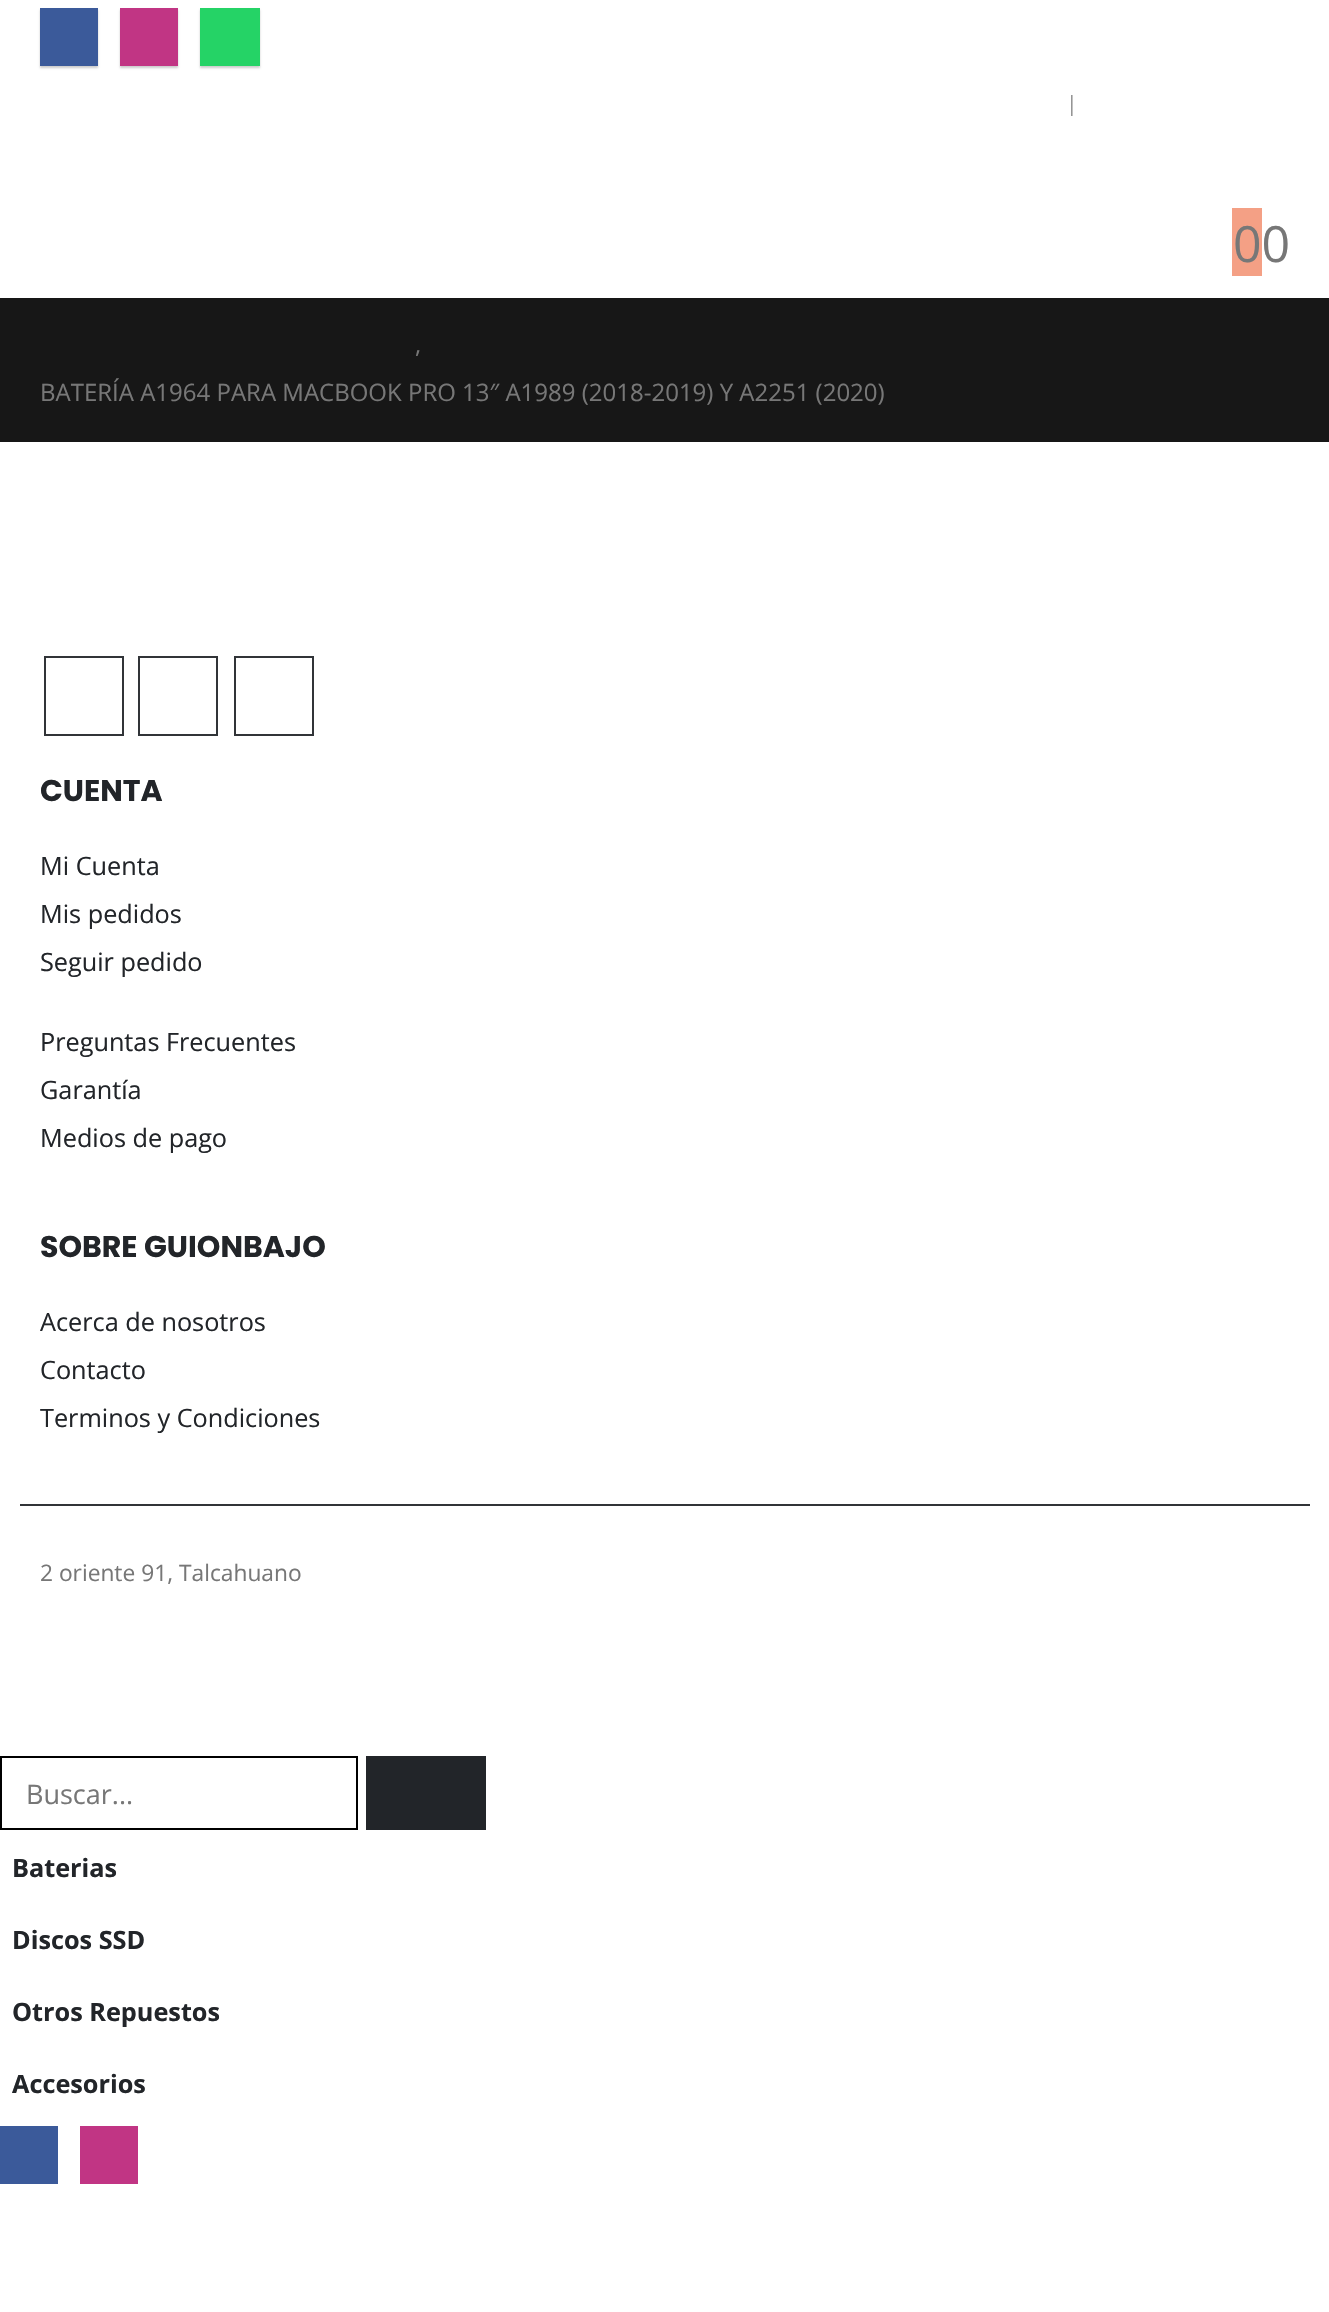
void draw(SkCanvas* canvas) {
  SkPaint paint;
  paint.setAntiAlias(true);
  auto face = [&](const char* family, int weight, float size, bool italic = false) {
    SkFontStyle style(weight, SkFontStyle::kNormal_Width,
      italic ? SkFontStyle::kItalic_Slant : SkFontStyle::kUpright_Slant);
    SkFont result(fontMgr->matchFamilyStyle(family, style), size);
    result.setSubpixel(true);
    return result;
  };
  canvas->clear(0xffffffff);
  paint.setColor(0x33000000);
  paint.setMaskFilter(SkMaskFilter::MakeBlur(kNormal_SkBlurStyle, 1));
  canvas->drawRect(SkRect::MakeXYWH(40, 10, 58, 58), paint);
  paint.setMaskFilter(nullptr);
  paint.setColor(0xff3b5a9a);
  canvas->drawRect(SkRect::MakeXYWH(40, 8, 58, 58), paint);
  paint.setColor(0x33000000);
  paint.setMaskFilter(SkMaskFilter::MakeBlur(kNormal_SkBlurStyle, 1));
  canvas->drawRect(SkRect::MakeXYWH(120, 10, 58, 58), paint);
  paint.setMaskFilter(nullptr);
  paint.setColor(0xffc13584);
  canvas->drawRect(SkRect::MakeXYWH(120, 8, 58, 58), paint);
  paint.setColor(0x33000000);
  paint.setMaskFilter(SkMaskFilter::MakeBlur(kNormal_SkBlurStyle, 1));
  canvas->drawRect(SkRect::MakeXYWH(200, 10, 60, 58), paint);
  paint.setMaskFilter(nullptr);
  {
    const struct { float x, y, w, h; SkColor color; } items[] = {
      {200, 8, 60, 58, 0xff25d366},
      {1232, 208, 30, 68, 0xfff4a085},
      {0, 298, 1329, 144, 0xff171717},
    };
    for (auto [x, y, w, h, color] : items) {
      paint.setColor(color);
      canvas->drawRect(SkRect::MakeXYWH(x, y, w, h), paint);
    }
  }
  paint.setStroke(true);
  paint.setStrokeWidth(2);
  paint.setColor(0xff313438);
  canvas->drawRect(SkRect::MakeXYWH(45, 657, 78, 78), paint);
  canvas->drawRect(SkRect::MakeXYWH(139, 657, 78, 78), paint);
  canvas->drawRect(SkRect::MakeXYWH(235, 657, 78, 78), paint);
  paint.setStroke(false);
  canvas->drawRect(SkRect::MakeXYWH(20, 1504, 1290, 2), paint);
  paint.setStroke(true);
  paint.setColor(0xff000000);
  canvas->drawRect(SkRect::MakeXYWH(1, 1757, 356, 72), paint);
  paint.setStroke(false);
  {
    const struct { float x, y, w, h; SkColor color; } items[] = {
      {366, 1756, 120, 74, 0xff222529},
      {0, 2126, 58, 58, 0xff3b5a9a},
      {80, 2126, 58, 58, 0xffc13584},
    };
    for (auto [x, y, w, h, color] : items) {
      paint.setColor(color);
      canvas->drawRect(SkRect::MakeXYWH(x, y, w, h), paint);
    }
  }
  auto f0 = face("Open Sans", 400, 21);
  paint.setColor(0xff929292);
  canvas->drawString("|", 1066, 111, f0, paint);
  auto f1 = face("Open Sans", 400, 50);
  paint.setColor(0xff777777);
  canvas->drawString("00", 1233, 262, f1, paint);
  auto f2 = face("Open Sans", 400, 24);
  canvas->drawString(",", 415, 353, f2, paint);
  canvas->drawString("BATERÍA A1964 PARA MACBOOK PRO 13″ A1989 (2018-2019) Y A2251 (2020)", 40, 401, f2, paint);
  auto f3 = face("Poppins", 700, 30);
  paint.setColor(0xff222529);
  canvas->drawString("CUENTA", 40, 801, f3, paint);
  auto f4 = face("Open Sans", 400, 25.25f);
  {
    const struct { const char* s; float x, y; } items[] = {
      {"Mi Cuenta", 40, 875},
      {"Mis pedidos", 40, 923},
      {"Seguir pedido", 40, 971},
      {"Preguntas Frecuentes", 40, 1051},
      {"Garantía", 40, 1099},
      {"Medios de pago", 40, 1147},
    };
    for (auto [s, x, y] : items) {
      canvas->drawString(s, x, y, f4, paint);
    }
  }
  canvas->drawString("SOBRE GUIONBAJO", 40, 1257, f3, paint);
  {
    const struct { const char* s; float x, y; } items[] = {
      {"Acerca de nosotros", 40, 1331},
      {"Contacto", 40, 1379},
      {"Terminos y Condiciones", 40, 1427},
    };
    for (auto [s, x, y] : items) {
      canvas->drawString(s, x, y, f4, paint);
    }
  }
  auto f5 = face("Open Sans", 400, 22.75f);
  paint.setColor(0xff777777);
  canvas->drawString("2 oriente 91, Talcahuano", 40, 1581, f5, paint);
  auto f6 = face("Open Sans", 400, 27);
  canvas->drawString("Buscar...", 26, 1804, f6, paint);
  auto f7 = face("Open Sans", 700, 25.25f);
  paint.setColor(0xff222529);
  {
    const struct { const char* s; float x, y; } items[] = {
      {"Baterias", 12, 1877},
      {"Discos SSD", 12, 1949},
      {"Otros Repuestos", 12, 2021},
      {"Accesorios", 12, 2093},
    };
    for (auto [s, x, y] : items) {
      canvas->drawString(s, x, y, f7, paint);
    }
  }
}
